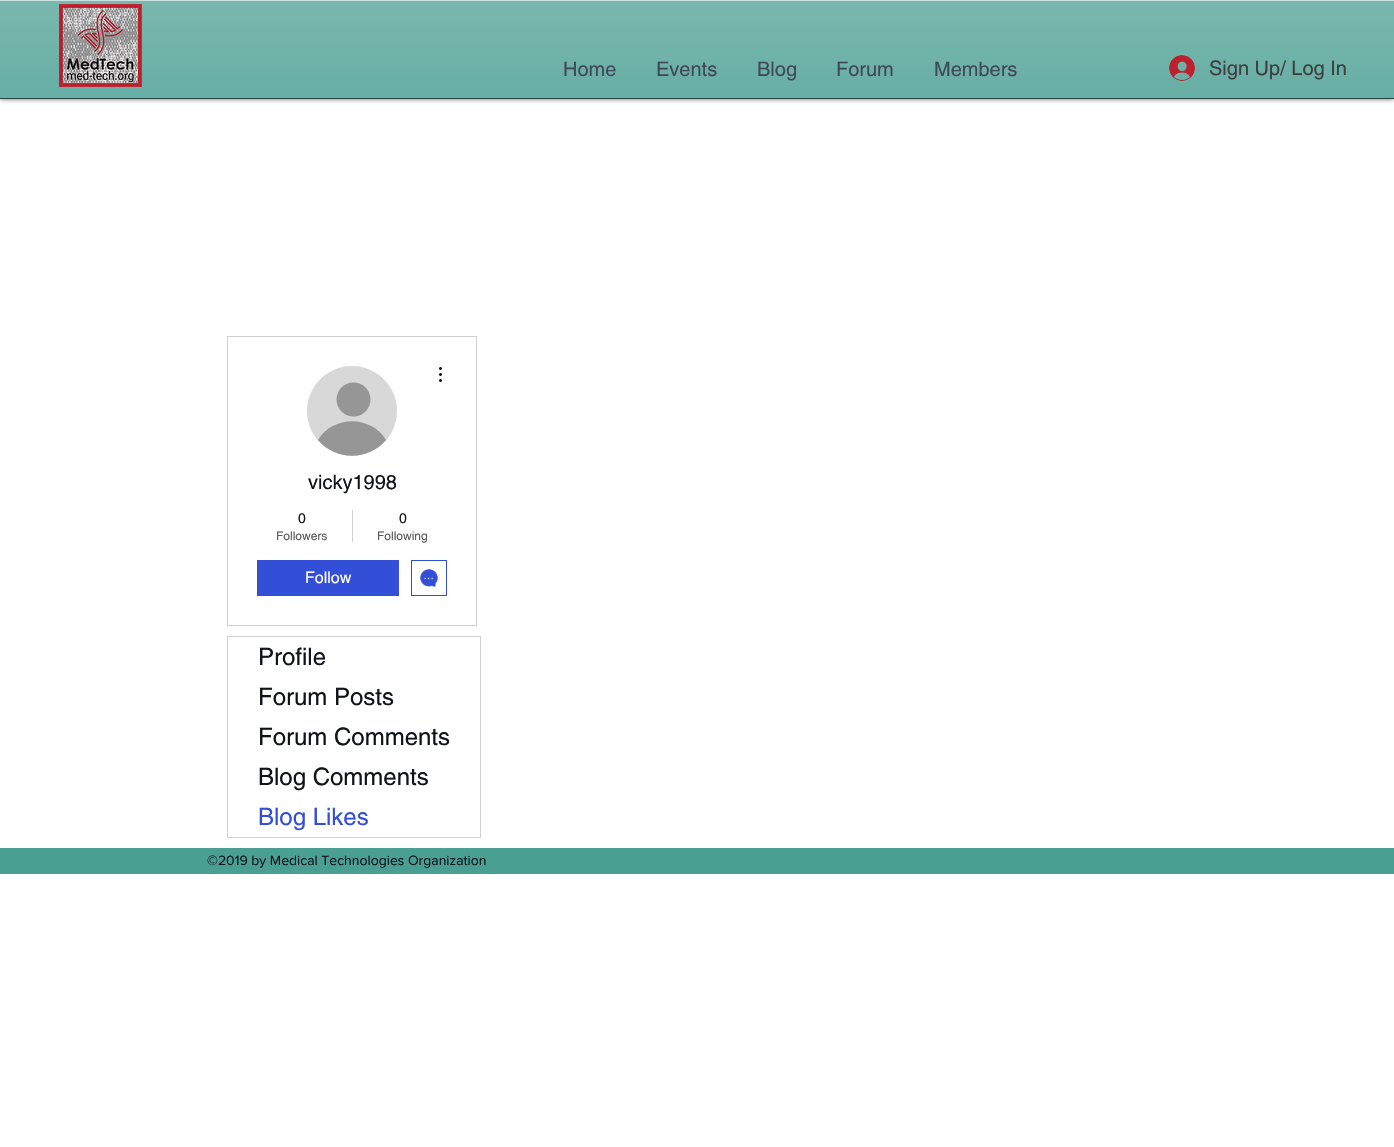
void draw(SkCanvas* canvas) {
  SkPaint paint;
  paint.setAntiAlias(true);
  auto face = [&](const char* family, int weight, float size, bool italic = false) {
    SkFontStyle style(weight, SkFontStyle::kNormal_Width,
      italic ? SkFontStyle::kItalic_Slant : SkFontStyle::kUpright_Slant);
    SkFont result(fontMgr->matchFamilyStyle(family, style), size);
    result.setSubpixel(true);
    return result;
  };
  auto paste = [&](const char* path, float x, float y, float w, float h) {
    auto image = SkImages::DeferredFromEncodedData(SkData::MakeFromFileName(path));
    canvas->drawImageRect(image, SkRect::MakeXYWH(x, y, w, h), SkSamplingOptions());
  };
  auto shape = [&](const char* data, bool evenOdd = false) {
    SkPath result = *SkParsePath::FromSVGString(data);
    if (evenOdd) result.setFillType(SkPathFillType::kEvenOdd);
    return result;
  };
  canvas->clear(0xffffffff);
  paint.setColor(0x99000000);
  paint.setMaskFilter(SkMaskFilter::MakeBlur(kNormal_SkBlurStyle, 2.5f));
  canvas->drawRect(SkRect::MakeXYWH(0, 0, 1394, 99), paint);
  paint.setMaskFilter(nullptr);
  paint.setColor(0xff4a9f93);
  canvas->drawRect(SkRect::MakeXYWH(0, 1, 1394, 97), paint);
  paste("img/1.png", 0, 1, 1394, 97);
  paint.setColor(0xff294642);
  canvas->drawRect(SkRect::MakeXYWH(0, 98, 1394, 1), paint);
  paint.setColor(0xffc9e3df);
  canvas->drawRect(SkRect::MakeXYWH(0, 0, 1394, 1), paint);
  paste("img/2.png", 59, 4, 83, 83);
  paste("img/3.png", 1169, 55, 26, 26);
  paint.setStroke(true);
  paint.setStrokeWidth(1);
  paint.setColor(0xffcfd0d1);
  canvas->drawRect(SkRect::MakeXYWH(227.5f, 336.5f, 249, 289), paint);
  paint.setStroke(false);
  paint.setColor(0xffd8d8d8);
  canvas->drawCircle(352, 411, 45, paint);
  paint.setColor(0xff969696);
  canvas->drawCircle(353.5f, 399.5f, 17, paint);
  canvas->drawPath(shape("M386 440C368 461 336 461 318 440C333 415 371 415 386 440Z"), paint);
  paste("img/4.png", 439, 367, 3, 15);
  paint.setColor(0xffcfd0d1);
  canvas->drawRect(SkRect::MakeXYWH(352, 510, 1, 32), paint);
  paint.setColor(0xff334ed7);
  canvas->drawRect(SkRect::MakeXYWH(257, 560, 142, 36), paint);
  paint.setStroke(true);
  canvas->drawRect(SkRect::MakeXYWH(411.5f, 560.5f, 35, 35), paint);
  paste("img/5.png", 420, 569, 18, 18);
  paint.setColor(0xffcfd0d1);
  canvas->drawRect(SkRect::MakeXYWH(227.5f, 636.5f, 253, 201), paint);
  paint.setStroke(false);
  paint.setColor(0xff4a9f93);
  canvas->drawRect(SkRect::MakeXYWH(0, 848, 1394, 26), paint);
  auto f0 = face("helvetica", 400, 20);
  paint.setColor(0xff404857);
  {
    const struct { const char* s; float x, y; } items[] = {
      {"Home", 563, 76},
      {"Events", 656, 76},
      {"Blog", 757, 76},
      {"Forum", 836, 76},
      {"Members", 934, 76},
    };
    for (auto [s, x, y] : items) {
      canvas->drawString(s, x, y, f0, paint);
    }
  }
  paint.setColor(0xff3e3e3e);
  canvas->drawString("Sign Up/ Log In", 1209, 75, f0, paint);
  paint.setColor(0xff101317);
  canvas->drawString("vicky1998", 308, 489, f0, paint);
  auto f1 = face("helvetica", 400, 14);
  canvas->drawString("0", 298, 523, f1, paint);
  auto f2 = face("helvetica", 400, 12);
  paint.setColor(0xff585a5d);
  canvas->drawString("Followers", 276, 540, f2, paint);
  paint.setColor(0xff101317);
  canvas->drawString("0", 399, 523, f1, paint);
  paint.setColor(0xff585a5d);
  canvas->drawString("Following", 377, 540, f2, paint);
  auto f3 = face("helvetica", 400, 16);
  paint.setColor(0xffffffff);
  canvas->drawString("Follow", 305, 583, f3, paint);
  auto f4 = face("helvetica", 400, 24);
  paint.setColor(0xff101317);
  {
    const struct { const char* s; float x, y; } items[] = {
      {"Profile", 258, 665},
      {"Forum Posts", 258, 705},
      {"Forum Comments", 258, 745},
      {"Blog Comments", 258, 785},
    };
    for (auto [s, x, y] : items) {
      canvas->drawString(s, x, y, f4, paint);
    }
  }
  paint.setColor(0xff334ed7);
  canvas->drawString("Blog Likes", 258, 825, f4, paint);
  auto f5 = face("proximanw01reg", 400, 14);
  paint.setColor(0xff101317);
  canvas->drawString("©2019 by Medical Technologies Organization", 207, 865, f5, paint);
}
